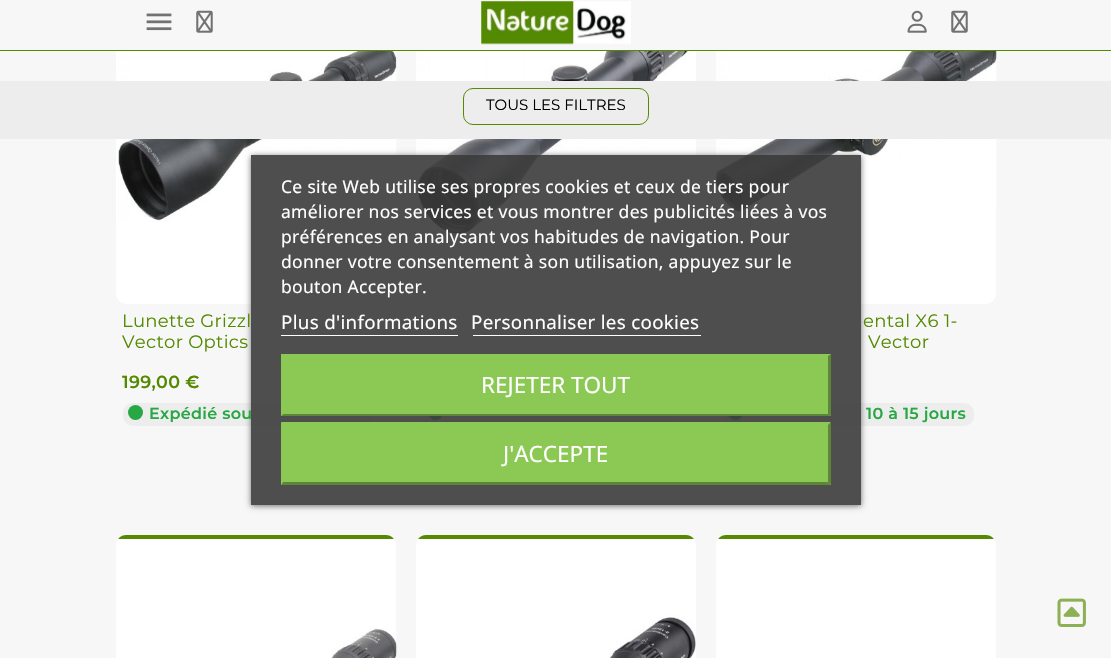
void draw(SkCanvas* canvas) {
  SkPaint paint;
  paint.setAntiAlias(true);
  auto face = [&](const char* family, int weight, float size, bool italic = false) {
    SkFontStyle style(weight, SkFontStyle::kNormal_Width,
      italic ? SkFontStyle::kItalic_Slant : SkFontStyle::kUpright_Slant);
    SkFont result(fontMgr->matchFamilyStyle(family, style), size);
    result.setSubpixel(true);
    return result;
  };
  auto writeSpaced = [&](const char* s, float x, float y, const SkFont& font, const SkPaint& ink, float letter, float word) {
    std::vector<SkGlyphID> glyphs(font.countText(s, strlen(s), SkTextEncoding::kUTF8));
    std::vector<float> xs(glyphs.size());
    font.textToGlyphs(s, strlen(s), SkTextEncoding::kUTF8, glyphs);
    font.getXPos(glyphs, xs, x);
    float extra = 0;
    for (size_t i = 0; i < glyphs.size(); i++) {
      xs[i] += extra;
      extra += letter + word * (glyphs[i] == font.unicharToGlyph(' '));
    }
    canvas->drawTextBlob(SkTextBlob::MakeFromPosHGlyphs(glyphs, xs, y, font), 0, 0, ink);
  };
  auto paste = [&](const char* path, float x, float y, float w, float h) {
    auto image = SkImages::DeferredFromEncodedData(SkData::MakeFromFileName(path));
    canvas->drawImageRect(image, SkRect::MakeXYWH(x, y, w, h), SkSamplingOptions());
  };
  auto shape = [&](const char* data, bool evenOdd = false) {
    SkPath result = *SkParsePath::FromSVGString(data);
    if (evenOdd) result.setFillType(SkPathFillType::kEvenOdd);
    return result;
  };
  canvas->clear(0xfff7f7f7);
  paint.setColor(0xffffffff);
  canvas->drawRoundRect(SkRect::MakeXYWH(116, -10, 280, 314), 10, 10, paint);
  paste("img/1.png", 118, 51, 279, 171);
  canvas->drawRoundRect(SkRect::MakeXYWH(416, -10, 280, 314), 10, 10, paint);
  paste("img/2.png", 416, 51, 279, 184);
  canvas->drawRoundRect(SkRect::MakeXYWH(716, -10, 280, 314), 10, 10, paint);
  paste("img/3.png", 716, 51, 281, 161);
  paint.setColor(0xffededed);
  canvas->drawRect(SkRect::MakeXYWH(0, 81, 1111, 58), paint);
  paint.setStroke(true);
  paint.setStrokeWidth(1);
  paint.setColor(0xff548a00);
  canvas->drawRoundRect(SkRect::MakeXYWH(463.5f, 88.5f, 185, 36), 9.5f, 9.5f, paint);
  paint.setStroke(false);
  paint.setColor(0xffededed);
  canvas->drawRoundRect(SkRect::MakeXYWH(123, 403, 251, 23), 10, 10, paint);
  paint.setColor(0xff28a745);
  canvas->drawCircle(135.5f, 412.5f, 7.5f, paint);
  paint.setColor(0xffededed);
  canvas->drawRoundRect(SkRect::MakeXYWH(423, 403, 251, 23), 10, 10, paint);
  paint.setColor(0xff28a745);
  canvas->drawCircle(435.5f, 412.5f, 7.5f, paint);
  paint.setColor(0xffededed);
  canvas->drawRoundRect(SkRect::MakeXYWH(723, 403, 251, 23), 10, 10, paint);
  paint.setColor(0xff28a745);
  canvas->drawCircle(735.5f, 412.5f, 7.5f, paint);
  paint.setColor(0xffffffff);
  canvas->drawRoundRect(SkRect::MakeXYWH(116, 535, 280, 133), 10, 10, paint);
  canvas->save();
  canvas->clipPath(shape("M126 535H386C391.5 535 396 539.5 396 545V909C396 914.5 391.5 919 386 919H126C120.5 919 116 914.5 116 909V545C116 539.5 120.5 535 126 535Z"), true);
  paint.setColor(0xff548a00);
  canvas->drawRect(SkRect::MakeXYWH(116, 535, 280, 4), paint);
  canvas->restore();
  paste("img/4.png", 331, 628, 66, 30);
  paint.setColor(0xffffffff);
  canvas->drawRoundRect(SkRect::MakeXYWH(416, 535, 280, 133), 10, 10, paint);
  canvas->save();
  canvas->clipPath(shape("M426 535H686C691.5 535 696 539.5 696 545V909C696 914.5 691.5 919 686 919H426C420.5 919 416 914.5 416 909V545C416 539.5 420.5 535 426 535Z"), true);
  paint.setColor(0xff548a00);
  canvas->drawRect(SkRect::MakeXYWH(416, 535, 280, 4), paint);
  canvas->restore();
  paste("img/5.png", 610, 615, 86, 43);
  paint.setColor(0xffffffff);
  canvas->drawRoundRect(SkRect::MakeXYWH(716, 535, 280, 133), 10, 10, paint);
  canvas->save();
  canvas->clipPath(shape("M726 535H986C991.5 535 996 539.5 996 545V909C996 914.5 991.5 919 986 919H726C720.5 919 716 914.5 716 909V545C716 539.5 720.5 535 726 535Z"), true);
  paint.setColor(0xff548a00);
  canvas->drawRect(SkRect::MakeXYWH(716, 535, 280, 4), paint);
  canvas->restore();
  paint.setColor(0xfff7f7f7);
  canvas->drawRect(SkRect::MakeXYWH(116, 0, 880, 50), paint);
  paint.setColor(0xff548a00);
  canvas->drawRect(SkRect::MakeXYWH(0, 50, 1111, 1), paint);
  paste("img/6.png", 146, 13, 26, 18);
  paste("img/7.png", 196, 10, 17, 23);
  paste("img/8.png", 481, 1, 150, 44);
  paste("img/9.png", 907, 10, 20, 23);
  paste("img/7.png", 951, 10, 17, 23);
  canvas->save();
  canvas->clipPath(shape("M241 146H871V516H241ZM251 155H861V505H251Z", true), true);
  paint.setColor(0xff707070);
  paint.setMaskFilter(SkMaskFilter::MakeBlur(kNormal_SkBlurStyle, 3));
  canvas->drawRect(SkRect::MakeXYWH(251, 156, 610, 350), paint);
  paint.setMaskFilter(nullptr);
  canvas->restore();
  paste("img/10.png", 1057, 598, 29, 29);
  auto f0 = face("Montserrat", 400, 15);
  paint.setColor(0xff000000);
  canvas->drawString("TOUS LES FILTRES", 486, 110, f0, paint);
  auto f1 = face("Montserrat", 400, 18);
  paint.setColor(0xff548a00);
  writeSpaced("Lunette Grizzl", 122, 327, f1, paint, 0.3f, 0);
  writeSpaced("Vector Optics", 122, 348, f1, paint, 0.3f, 0);
  auto f2 = face("Montserrat", 600, 17.5f);
  writeSpaced("199,00 €", 122, 388, f2, paint, 0.3f, 0);
  auto f3 = face("Montserrat", 600, 16);
  paint.setColor(0xff28a745);
  writeSpaced("Expédié sou", 149, 419, f3, paint, 0.3f, 0);
  paint.setColor(0xff548a00);
  writeSpaced("ental X6 1-", 863, 327, f1, paint, 0.3f, 0);
  writeSpaced("Vector", 868, 348, f1, paint, 0.3f, 0);
  paint.setColor(0xff28a745);
  writeSpaced("10 à 15 jours", 866, 419, f3, paint, 0.3f, 0);
  paint.setColor(0xe63b3b3b);
  canvas->drawRect(SkRect::MakeXYWH(251, 155, 610, 350), paint);
  auto f4 = face("Noto Sans", 400, 17.5f);
  paint.setColor(0xffffffff);
  {
    const struct { const char* s; float x, y; } items[] = {
      {"Ce site Web utilise ses propres cookies et ceux de tiers pour", 281, 193},
      {"améliorer nos services et vous montrer des publicités liées à vos", 281, 218},
      {"préférences en analysant vos habitudes de navigation. Pour", 281, 243},
      {"donner votre consentement à son utilisation, appuyez sur le", 281, 268},
      {"bouton Accepter.", 281, 293},
    };
    for (auto [s, x, y] : items) {
      writeSpaced(s, x, y, f4, paint, 0.3f, 0);
    }
  }
  auto f5 = face("Noto Sans", 400, 18.75f);
  writeSpaced("Plus d'informations", 281, 329, f5, paint, 0.3f, 0);
  canvas->drawRect(SkRect::MakeXYWH(281, 335, 177, 1), paint);
  writeSpaced("Personnaliser les cookies", 471, 329, f5, paint, 0.3f, 0);
  canvas->drawRect(SkRect::MakeXYWH(473, 335, 228, 1), paint);
  paint.setColor(0xff8bc954);
  canvas->drawRect(SkRect::MakeXYWH(281, 354, 550, 62), paint);
  paint.setColor(0xff5d8638);
  canvas->drawPath(shape("M831 354V416L828 414V356Z"), paint);
  canvas->drawPath(shape("M831 416H281L283 414H828Z"), paint);
  paint.setColor(0xff8bc954);
  canvas->drawPath(shape("M281 416V354L283 356V414Z"), paint);
  auto f6 = face("Noto Sans", 400, 22.5f);
  paint.setColor(0xffffffff);
  canvas->drawString("REJETER TOUT", 481, 393, f6, paint);
  paint.setColor(0xff8bc954);
  canvas->drawRect(SkRect::MakeXYWH(281, 423, 550, 62), paint);
  canvas->drawPath(shape("M281 422H831L828 425H283Z"), paint);
  paint.setColor(0xff5d8638);
  canvas->drawPath(shape("M831 422V485L828 482V425Z"), paint);
  canvas->drawPath(shape("M831 485H281L283 482H828Z"), paint);
  paint.setColor(0xff8bc954);
  canvas->drawPath(shape("M281 485V422L283 425V482Z"), paint);
  paint.setColor(0xffffffff);
  canvas->drawString("J'ACCEPTE", 503, 462, f6, paint);
}
